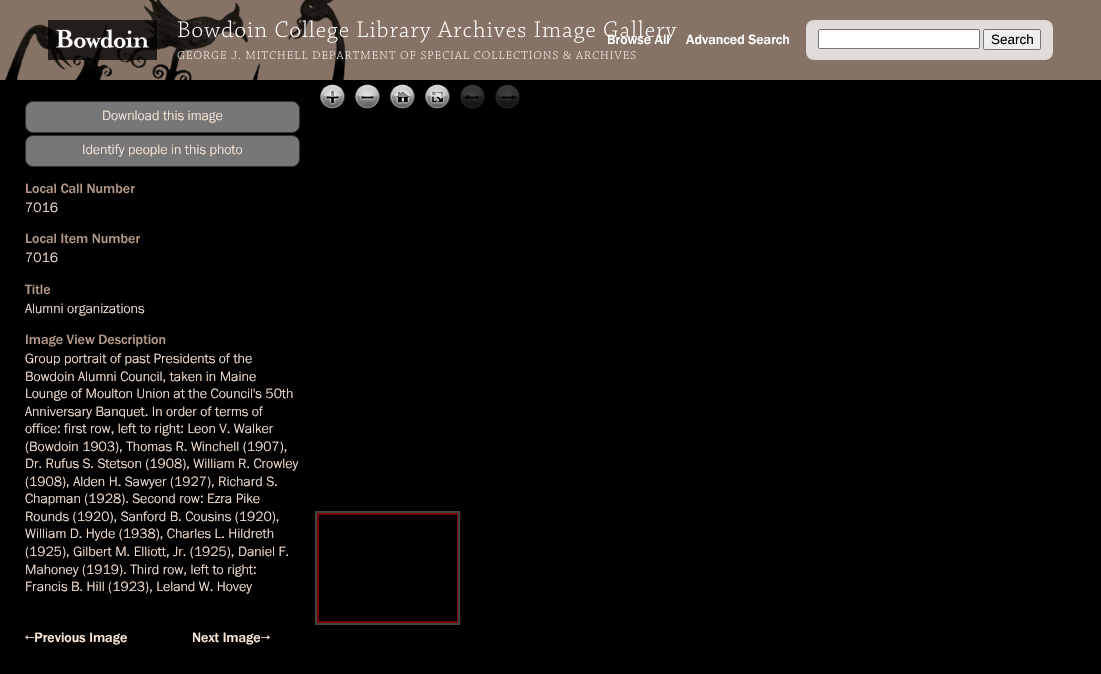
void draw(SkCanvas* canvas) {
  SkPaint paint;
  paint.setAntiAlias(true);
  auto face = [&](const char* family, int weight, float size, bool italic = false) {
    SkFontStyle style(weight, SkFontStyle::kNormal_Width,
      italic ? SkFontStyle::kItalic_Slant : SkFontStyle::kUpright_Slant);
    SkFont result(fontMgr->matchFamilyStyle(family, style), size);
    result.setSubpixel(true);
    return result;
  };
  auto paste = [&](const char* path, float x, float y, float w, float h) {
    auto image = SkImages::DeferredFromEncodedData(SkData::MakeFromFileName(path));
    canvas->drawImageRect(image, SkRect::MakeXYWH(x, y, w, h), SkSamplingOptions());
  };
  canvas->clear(0xff000000);
  paint.setColor(0xff877365);
  canvas->drawRect(SkRect::MakeXYWH(0, 0, 1101, 80), paint);
  paste("img/1.png", 5, 0, 341, 80);
  paste("img/2.png", 48, 20, 109, 40);
  paste("img/3.png", 178, 20, 499, 23);
  paste("img/4.png", 177, 51, 459, 9);
  paint.setColor(0xffe1dcd9);
  canvas->drawRoundRect(SkRect::MakeXYWH(806, 20, 247, 40), 8, 8, paint);
  paint.setColor(0xffffffff);
  canvas->drawRoundRect(SkRect::MakeXYWH(818.5f, 29.5f, 161, 19), 1.5f, 1.5f, paint);
  paint.setStroke(true);
  paint.setStrokeWidth(1);
  paint.setColor(0xff767676);
  canvas->drawRoundRect(SkRect::MakeXYWH(818.5f, 29.5f, 161, 19), 1.5f, 1.5f, paint);
  paint.setStroke(false);
  paint.setColor(0xffefefef);
  canvas->drawRoundRect(SkRect::MakeXYWH(983.5f, 29.5f, 57, 20), 1.5f, 1.5f, paint);
  paint.setStroke(true);
  paint.setColor(0xff767676);
  canvas->drawRoundRect(SkRect::MakeXYWH(983.5f, 29.5f, 57, 20), 1.5f, 1.5f, paint);
  paint.setStroke(false);
  paint.setColor(0xff777777);
  canvas->drawRoundRect(SkRect::MakeXYWH(25.5f, 101.5f, 274, 31), 7.5f, 7.5f, paint);
  paint.setStroke(true);
  paint.setColor(0xff333333);
  canvas->drawRoundRect(SkRect::MakeXYWH(25.5f, 101.5f, 274, 31), 7.5f, 7.5f, paint);
  paint.setStroke(false);
  paint.setColor(0xff777777);
  canvas->drawRoundRect(SkRect::MakeXYWH(25.5f, 135.5f, 274, 31), 7.5f, 7.5f, paint);
  paint.setStroke(true);
  paint.setColor(0xff333333);
  canvas->drawRoundRect(SkRect::MakeXYWH(25.5f, 135.5f, 274, 31), 7.5f, 7.5f, paint);
  paste("img/5.png", 320, 84, 25, 25);
  paste("img/6.png", 320, 84, 25, 25);
  paste("img/7.png", 355, 84, 25, 25);
  paste("img/8.png", 355, 84, 25, 25);
  paste("img/9.png", 390, 84, 25, 25);
  paste("img/10.png", 390, 84, 25, 25);
  paste("img/11.png", 425, 84, 25, 25);
  paste("img/12.png", 425, 84, 25, 25);
  paste("img/13.png", 460, 84, 25, 25);
  paste("img/14.png", 460, 84, 25, 25);
  paste("img/15.png", 495, 84, 25, 25);
  paste("img/16.png", 495, 84, 25, 25);
  paint.setStrokeWidth(2);
  paint.setColor(0xff444444);
  canvas->drawRect(SkRect::MakeXYWH(316, 512, 143, 112), paint);
  canvas->save();
  canvas->clipRect(SkRect::MakeXYWH(317, 513, 141, 110));
  paint.setColor(0xff7a0000);
  canvas->drawRect(SkRect::MakeXYWH(318, 514, 140, 108), paint);
  canvas->restore();
  auto f0 = face("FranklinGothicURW", 400, 14);
  paint.setStroke(false);
  paint.setColor(0xffffffff);
  canvas->drawString("Browse All", 607, 44, f0, paint);
  canvas->drawString("Advanced Search", 686, 44, f0, paint);
  auto f1 = face("Liberation Sans", 400, 13.5f);
  paint.setColor(0xff000000);
  canvas->drawString("Search", 991, 44, f1, paint);
  auto f2 = face("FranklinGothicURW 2", 400, 14);
  paint.setColor(0xfffce9d9);
  canvas->drawString("Download this image", 102, 120, f2, paint);
  canvas->drawString("Identify people in this photo", 82, 154, f2, paint);
  paint.setColor(0xffb39886);
  canvas->drawString("Local Call Number", 25, 193, f0, paint);
  paint.setColor(0xfffce9d9);
  canvas->drawString("7016", 25, 212, f2, paint);
  paint.setColor(0xffb39886);
  canvas->drawString("Local Item Number", 25, 243, f0, paint);
  paint.setColor(0xfffce9d9);
  canvas->drawString("7016", 25, 262, f2, paint);
  paint.setColor(0xffb39886);
  canvas->drawString("Title", 25, 294, f0, paint);
  paint.setColor(0xfffce9d9);
  canvas->drawString("Alumni organizations", 25, 313, f2, paint);
  paint.setColor(0xffb39886);
  canvas->drawString("Image View Description", 25, 344, f0, paint);
  paint.setColor(0xfffce9d9);
  {
    const struct { const char* s; float x, y; } items[] = {
      {"Group portrait of past Presidents of the", 25, 363},
      {"Bowdoin Alumni Council, taken in Maine", 25, 381},
      {"Lounge of Moulton Union at the Council's 50th", 25, 398},
      {"Anniversary Banquet. In order of terms of", 25, 416},
      {"office: first row, left to right: Leon V. Walker", 25, 433},
      {"(Bowdoin 1903), Thomas R. Winchell (1907),", 25, 451},
      {"Dr. Rufus S. Stetson (1908), William R. Crowley", 25, 468},
      {"(1908), Alden H. Sawyer (1927), Richard S.", 25, 486},
      {"Chapman (1928). Second row: Ezra Pike", 25, 503},
      {"Rounds (1920), Sanford B. Cousins (1920),", 25, 521},
      {"William D. Hyde (1938), Charles L. Hildreth", 25, 538},
      {"(1925), Gilbert M. Elliott, Jr. (1925), Daniel F.", 25, 556},
      {"Mahoney (1919). Third row, left to right:", 25, 574},
      {"Francis B. Hill (1923), Leland W. Hovey", 25, 591},
    };
    for (auto [s, x, y] : items) {
      canvas->drawString(s, x, y, f2, paint);
    }
  }
  canvas->drawString("←Previous Image", 25, 642, f0, paint);
  canvas->drawString("Next Image→", 192, 642, f0, paint);
}
